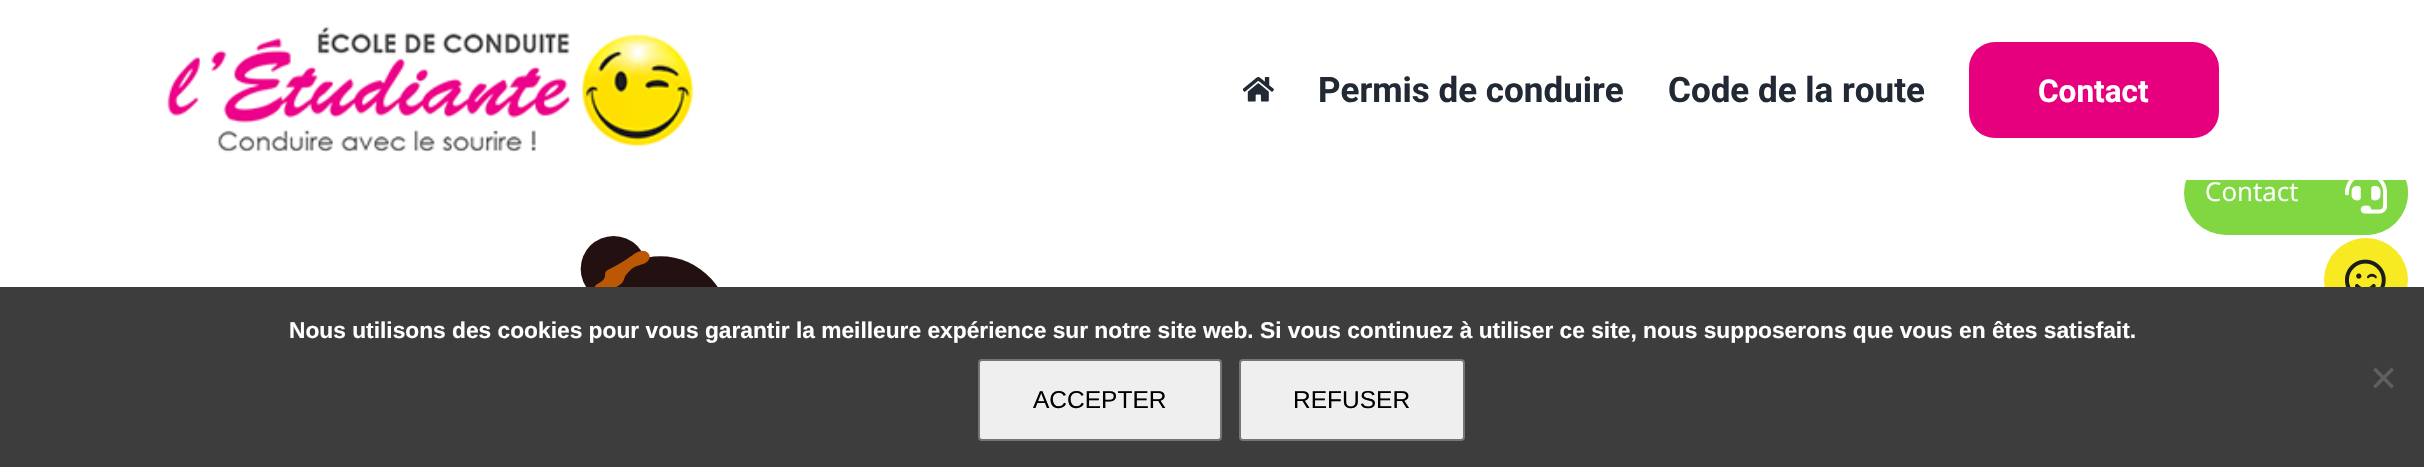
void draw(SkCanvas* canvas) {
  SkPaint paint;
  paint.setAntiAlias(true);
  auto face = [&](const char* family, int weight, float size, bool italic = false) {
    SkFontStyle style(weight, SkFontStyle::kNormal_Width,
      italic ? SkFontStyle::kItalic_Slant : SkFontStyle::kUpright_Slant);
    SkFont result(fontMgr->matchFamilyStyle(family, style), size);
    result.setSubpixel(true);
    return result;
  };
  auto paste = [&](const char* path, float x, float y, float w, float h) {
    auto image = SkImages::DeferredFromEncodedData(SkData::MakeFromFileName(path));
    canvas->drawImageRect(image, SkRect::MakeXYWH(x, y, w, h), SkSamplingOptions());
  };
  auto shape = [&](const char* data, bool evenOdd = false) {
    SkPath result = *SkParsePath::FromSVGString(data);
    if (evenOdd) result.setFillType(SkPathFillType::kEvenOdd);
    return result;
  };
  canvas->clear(0xffffffff);
  paint.setColor(0xff81d742);
  canvas->drawRoundRect(SkRect::MakeXYWH(2184, 151, 224, 84), 42, 42, paint);
  canvas->drawCircle(2366, 193, 42, paint);
  paint.setColor(0xffffffff);
  canvas->drawRect(SkRect::MakeXYWH(2186, 151, 220, 29), paint);
  paste("img/1.png", 167, 26, 527, 127);
  paste("img/2.png", 1243, 77, 31, 25);
  paint.setColor(0xffe6007e);
  canvas->drawRoundRect(SkRect::MakeXYWH(1969, 42, 250, 96), 26, 26, paint);
  paste("img/3.png", 580, 236, 138, 51);
  paste("img/4.png", 2345, 180, 42, 34);
  paint.setColor(0xfff7e922);
  canvas->drawCircle(2366, 280, 42, paint);
  paste("img/5.png", 2345, 259, 41, 28);
  paint.setColor(0xff3d3d3d);
  canvas->drawRect(SkRect::MakeXYWH(0, 287, 2424, 180), paint);
  paint.setColor(0xff5f5f5f);
  canvas->drawPath(shape("M2391.5 367.5L2394 370L2375.5 388.5L2373 386Z"), paint);
  canvas->drawPath(shape("M2373 370L2375.5 367.5L2394 386L2391.5 388.5Z"), paint);
  paint.setColor(0xffefefef);
  canvas->drawRoundRect(SkRect::MakeXYWH(979, 360, 242, 80), 3, 3, paint);
  paint.setStroke(true);
  paint.setStrokeWidth(2);
  paint.setColor(0xff767676);
  canvas->drawRoundRect(SkRect::MakeXYWH(979, 360, 242, 80), 3, 3, paint);
  paint.setStroke(false);
  paint.setColor(0xffefefef);
  canvas->drawRoundRect(SkRect::MakeXYWH(1240, 360, 224, 80), 3, 3, paint);
  paint.setStroke(true);
  paint.setColor(0xff767676);
  canvas->drawRoundRect(SkRect::MakeXYWH(1240, 360, 224, 80), 3, 3, paint);
  auto f0 = face("Roboto", 700, 35);
  paint.setStroke(false);
  paint.setColor(0xff212934);
  canvas->drawString("Permis de conduire", 1318, 102, f0, paint);
  canvas->drawString("Code de la route", 1668, 102, f0, paint);
  auto f1 = face("Roboto", 700, 31.5f);
  paint.setColor(0xffffffff);
  canvas->drawString("Contact", 2038, 102, f1, paint);
  auto f2 = face("Open Sans", 400, 26);
  canvas->drawString("Contact", 2205, 201, f2, paint);
  auto f3 = face("Liberation Sans", 700, 22.75f);
  canvas->drawString("Nous utilisons des cookies pour vous garantir la meilleure expérience sur notre site web. Si vous continuez à utiliser ce site, nous supposerons que vous en êtes satisfait.", 289, 338, f3, paint);
  auto f4 = face("Liberation Sans", 400, 24.5f);
  paint.setColor(0xff000000);
  canvas->drawString("ACCEPTER", 1033, 408, f4, paint);
  canvas->drawString("REFUSER", 1293, 408, f4, paint);
}
